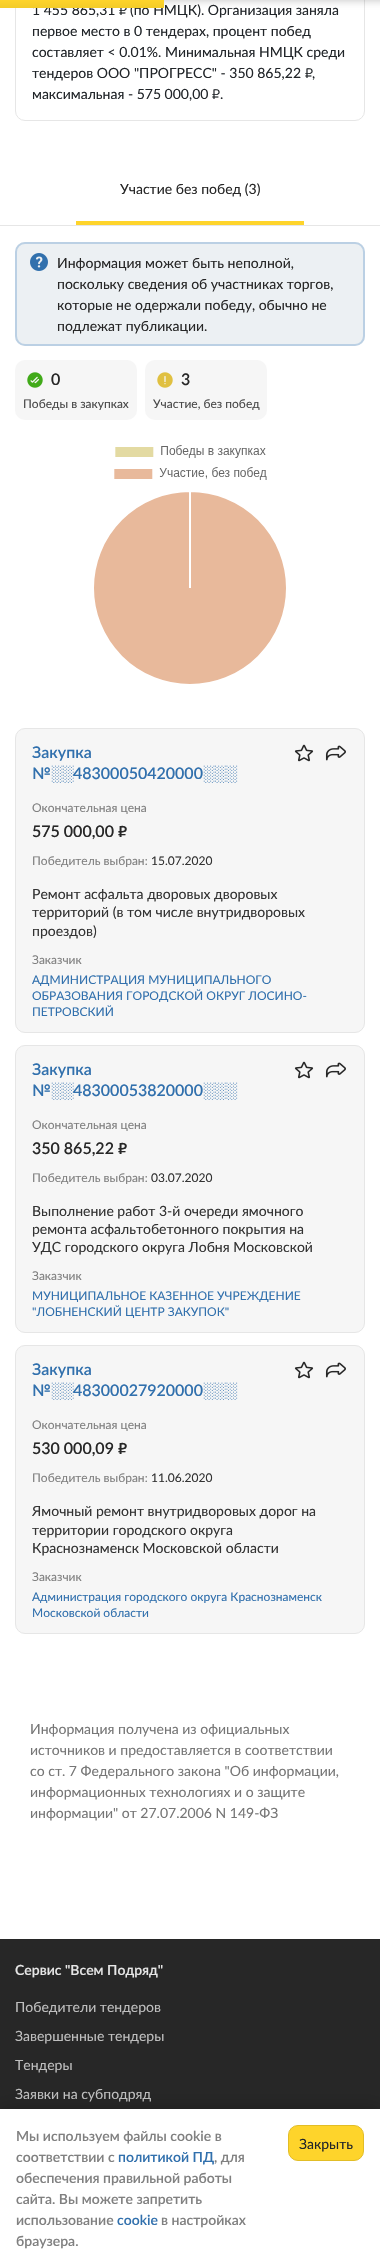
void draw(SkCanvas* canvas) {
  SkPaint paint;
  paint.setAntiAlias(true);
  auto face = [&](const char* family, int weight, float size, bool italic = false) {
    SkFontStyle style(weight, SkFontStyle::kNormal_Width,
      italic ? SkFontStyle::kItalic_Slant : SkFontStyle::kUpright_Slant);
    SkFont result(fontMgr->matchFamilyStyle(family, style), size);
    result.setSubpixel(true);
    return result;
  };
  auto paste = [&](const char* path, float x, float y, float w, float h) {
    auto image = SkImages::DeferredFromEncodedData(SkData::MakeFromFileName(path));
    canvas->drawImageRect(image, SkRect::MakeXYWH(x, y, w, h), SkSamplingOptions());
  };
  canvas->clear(0xffffffff);
  paint.setStroke(true);
  paint.setStrokeWidth(1);
  paint.setColor(0xffe6e6e6);
  canvas->drawRoundRect(SkRect::MakeXYWH(15.5f, -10.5f, 349, 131), 9.5f, 9.5f, paint);
  paint.setStroke(false);
  paint.setColor(0x40000000);
  paint.setMaskFilter(SkMaskFilter::MakeBlur(kNormal_SkBlurStyle, 4));
  canvas->drawRect(SkRect::MakeXYWH(-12, -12, 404, 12), paint);
  paint.setMaskFilter(nullptr);
  paint.setColor(0xffe6e6e6);
  canvas->drawRect(SkRect::MakeXYWH(0, 225, 380, 1), paint);
  paint.setColor(0xfffed42b);
  canvas->drawRect(SkRect::MakeXYWH(76, 221, 228, 4), paint);
  paint.setColor(0xffecf0f3);
  canvas->drawRoundRect(SkRect::MakeXYWH(15, 242, 350, 104), 10, 10, paint);
  paste("img/1.png", 30, 253, 18, 18);
  paint.setStroke(true);
  paint.setStrokeWidth(2);
  paint.setColor(0xffbbd0e4);
  canvas->drawRoundRect(SkRect::MakeXYWH(16, 243, 348, 102), 9, 9, paint);
  paint.setStroke(false);
  paint.setColor(0xfff6f6f6);
  canvas->drawRoundRect(SkRect::MakeXYWH(15, 360, 122, 60), 10, 10, paint);
  paste("img/2.png", 27, 372, 16, 16);
  canvas->drawRoundRect(SkRect::MakeXYWH(145, 360, 122, 60), 10, 10, paint);
  paste("img/3.png", 157, 372, 16, 16);
  paste("img/4.png", 94, 445, 192, 239);
  canvas->drawRoundRect(SkRect::MakeXYWH(15.5f, 728.5f, 349, 304), 9.5f, 9.5f, paint);
  paint.setStroke(true);
  paint.setStrokeWidth(1);
  paint.setColor(0xffe6e6e6);
  canvas->drawRoundRect(SkRect::MakeXYWH(15.5f, 728.5f, 349, 304), 9.5f, 9.5f, paint);
  paste("img/5.png", 294, 744, 20, 18);
  paste("img/6.png", 325, 745, 21, 16);
  paint.setStroke(false);
  paint.setColor(0xfff6f6f6);
  canvas->drawRoundRect(SkRect::MakeXYWH(15.5f, 1045.5f, 349, 287), 9.5f, 9.5f, paint);
  paint.setStroke(true);
  paint.setColor(0xffe6e6e6);
  canvas->drawRoundRect(SkRect::MakeXYWH(15.5f, 1045.5f, 349, 287), 9.5f, 9.5f, paint);
  paste("img/5.png", 294, 1061, 20, 18);
  paste("img/6.png", 325, 1062, 21, 16);
  paint.setStroke(false);
  paint.setColor(0xfff6f6f6);
  canvas->drawRoundRect(SkRect::MakeXYWH(15.5f, 1345.5f, 349, 288), 9.5f, 9.5f, paint);
  paint.setStroke(true);
  paint.setColor(0xffe6e6e6);
  canvas->drawRoundRect(SkRect::MakeXYWH(15.5f, 1345.5f, 349, 288), 9.5f, 9.5f, paint);
  paste("img/5.png", 294, 1361, 20, 18);
  paste("img/6.png", 325, 1362, 21, 16);
  paint.setStroke(false);
  paint.setColor(0xff272727);
  canvas->drawRect(SkRect::MakeXYWH(0, 1939, 380, 170), paint);
  paint.setColor(0x40000000);
  paint.setMaskFilter(SkMaskFilter::MakeBlur(kNormal_SkBlurStyle, 9));
  canvas->drawRect(SkRect::MakeXYWH(0, 2109, 380, 158), paint);
  paint.setMaskFilter(nullptr);
  paint.setColor(0xffffffff);
  canvas->drawRect(SkRect::MakeXYWH(0, 2109, 380, 158), paint);
  paint.setColor(0xfffed42b);
  canvas->drawRoundRect(SkRect::MakeXYWH(288.5f, 2125.5f, 75, 35), 9.5f, 9.5f, paint);
  paint.setStroke(true);
  paint.setColor(0xffe2bd26);
  canvas->drawRoundRect(SkRect::MakeXYWH(288.5f, 2125.5f, 75, 35), 9.5f, 9.5f, paint);
  auto f0 = face("Lato", 400, 14);
  paint.setStroke(false);
  paint.setColor(0xff212529);
  canvas->drawString("1 455 865,31", 32, 15, f0, paint);
  auto f1 = face("Ubuntu", 400, 14);
  canvas->drawString("₽", 119, 15, f1, paint);
  canvas->drawString("(по НМЦК). Организация заняла", 130, 15, f0, paint);
  {
    const SkColor colors[] = {0xfffed42b, 0xfff3cb28};
    const float stops[] = {0, 1};
    const SkPoint ends[] = {{82, 0}, {82, 8}};
    paint.setShader(SkGradientShader::MakeLinear(ends, colors, stops, 2, SkTileMode::kClamp));
    paint.setAlpha(255);
  }
  canvas->drawRect(SkRect::MakeXYWH(0, 0, 164, 8), paint);
  paint.setShader(nullptr);
  paint.setColor(0xff212529);
  {
    const struct { const char* s; float x, y; } items[] = {
      {"первое место в 0 тендерах, процент побед", 32, 36},
      {"составляет < 0.01%. Минимальная НМЦК среди", 32, 57},
      {"тендеров ООО \"ПРОГРЕСС\" - 350 865,22", 32, 78},
    };
    for (auto [s, x, y] : items) {
      canvas->drawString(s, x, y, f0, paint);
    }
  }
  canvas->drawString("₽", 305, 78, f1, paint);
  canvas->drawString(",", 312, 78, f0, paint);
  canvas->drawString("максимальная - 575 000,00", 32, 99, f0, paint);
  canvas->drawString("₽", 212, 99, f1, paint);
  canvas->drawString(".", 220, 99, f0, paint);
  paint.setColor(0xff272727);
  {
    const struct { const char* s; float x, y; } items[] = {
      {"Участие без побед (3)", 120, 194},
      {"Информация может быть неполной,", 57, 268},
      {"поскольку сведения об участниках торгов,", 57, 289},
      {"которые не одержали победу, обычно не", 57, 310},
      {"подлежат публикации.", 57, 331},
    };
    for (auto [s, x, y] : items) {
      canvas->drawString(s, x, y, f0, paint);
    }
  }
  auto f2 = face("Lato", 600, 16);
  canvas->drawString("0", 51, 385, f2, paint);
  auto f3 = face("Lato", 400, 12);
  paint.setColor(0xff484848);
  canvas->drawString("Победы в закупках", 23, 408, f3, paint);
  paint.setColor(0xff272727);
  canvas->drawString("3", 181, 385, f2, paint);
  paint.setColor(0xff484848);
  canvas->drawString("Участие, без побед", 153, 408, f3, paint);
  paint.setColor(0xff3170ad);
  canvas->drawString("Закупка", 32, 758, f2, paint);
  canvas->drawString("№", 32, 779, f2, paint);
  auto f4 = face("Liberation Sans", 700, 16);
  canvas->drawString("░░", 51, 779, f4, paint);
  canvas->drawString("48300050420000", 73, 779, f2, paint);
  canvas->drawString("░░░", 203, 779, f4, paint);
  paint.setColor(0xff808080);
  canvas->drawString("Окончательная цена", 32, 812, f3, paint);
  paint.setColor(0xff272727);
  canvas->drawString("575 000,00", 32, 837, f2, paint);
  auto f5 = face("Ubuntu", 600, 16);
  canvas->drawString("₽", 118, 837, f5, paint);
  paint.setColor(0xff808080);
  canvas->drawString("Победитель выбран:", 32, 865, f3, paint);
  paint.setColor(0xff333333);
  canvas->drawString("15.07.2020", 151, 865, f3, paint);
  {
    const struct { const char* s; float x, y; } items[] = {
      {"Ремонт асфальта дворовых дворовых", 32, 899},
      {"территорий (в том числе внутридворовых", 32, 917},
      {"проездов)", 32, 936},
    };
    for (auto [s, x, y] : items) {
      canvas->drawString(s, x, y, f0, paint);
    }
  }
  paint.setColor(0xff808080);
  canvas->drawString("Заказчик", 32, 964, f3, paint);
  paint.setColor(0xff3170ad);
  {
    const struct { const char* s; float x, y; } items[] = {
      {"АДМИНИСТРАЦИЯ МУНИЦИПАЛЬНОГО", 32, 984},
      {"ОБРАЗОВАНИЯ ГОРОДСКОЙ ОКРУГ ЛОСИНО-", 32, 1000},
      {"ПЕТРОВСКИЙ", 32, 1016},
    };
    for (auto [s, x, y] : items) {
      canvas->drawString(s, x, y, f3, paint);
    }
  }
  canvas->drawString("Закупка", 32, 1075, f2, paint);
  canvas->drawString("№", 32, 1096, f2, paint);
  canvas->drawString("░░", 51, 1096, f4, paint);
  canvas->drawString("48300053820000", 73, 1096, f2, paint);
  canvas->drawString("░░░", 203, 1096, f4, paint);
  paint.setColor(0xff808080);
  canvas->drawString("Окончательная цена", 32, 1129, f3, paint);
  paint.setColor(0xff272727);
  canvas->drawString("350 865,22", 32, 1154, f2, paint);
  canvas->drawString("₽", 118, 1154, f5, paint);
  paint.setColor(0xff808080);
  canvas->drawString("Победитель выбран:", 32, 1182, f3, paint);
  paint.setColor(0xff333333);
  canvas->drawString("03.07.2020", 151, 1182, f3, paint);
  {
    const struct { const char* s; float x, y; } items[] = {
      {"Выполнение работ 3-й очереди ямочного", 32, 1216},
      {"ремонта асфальтобетонного покрытия на", 32, 1234},
      {"УДС городского округа Лобня Московской", 32, 1252},
    };
    for (auto [s, x, y] : items) {
      canvas->drawString(s, x, y, f0, paint);
    }
  }
  paint.setColor(0xff808080);
  canvas->drawString("Заказчик", 32, 1280, f3, paint);
  paint.setColor(0xff3170ad);
  canvas->drawString("МУНИЦИПАЛЬНОЕ КАЗЕННОЕ УЧРЕЖДЕНИЕ", 32, 1300, f3, paint);
  canvas->drawString("\"ЛОБНЕНСКИЙ ЦЕНТР ЗАКУПОК\"", 32, 1316, f3, paint);
  canvas->drawString("Закупка", 32, 1375, f2, paint);
  canvas->drawString("№", 32, 1396, f2, paint);
  canvas->drawString("░░", 51, 1396, f4, paint);
  canvas->drawString("48300027920000", 73, 1396, f2, paint);
  canvas->drawString("░░░", 203, 1396, f4, paint);
  paint.setColor(0xff808080);
  canvas->drawString("Окончательная цена", 32, 1429, f3, paint);
  paint.setColor(0xff272727);
  canvas->drawString("530 000,09", 32, 1454, f2, paint);
  canvas->drawString("₽", 118, 1454, f5, paint);
  paint.setColor(0xff808080);
  canvas->drawString("Победитель выбран:", 32, 1482, f3, paint);
  paint.setColor(0xff333333);
  canvas->drawString("11.06.2020", 151, 1482, f3, paint);
  {
    const struct { const char* s; float x, y; } items[] = {
      {"Ямочный ремонт внутридворовых дорог на", 32, 1516},
      {"территории городского округа", 32, 1535},
      {"Краснознаменск Московской области", 32, 1553},
    };
    for (auto [s, x, y] : items) {
      canvas->drawString(s, x, y, f0, paint);
    }
  }
  paint.setColor(0xff808080);
  canvas->drawString("Заказчик", 32, 1581, f3, paint);
  paint.setColor(0xff3170ad);
  canvas->drawString("Администрация городского округа Краснознаменск", 32, 1601, f3, paint);
  canvas->drawString("Московской области", 32, 1617, f3, paint);
  paint.setColor(0xff767676);
  {
    const struct { const char* s; float x, y; } items[] = {
      {"Информация получена из официальных", 30, 1734},
      {"источников и предоставляется в соответствии", 30, 1755},
      {"со ст. 7 Федерального закона \"Об информации,", 30, 1776},
      {"информационных технологиях и о защите", 30, 1797},
      {"информации\" от 27.07.2006 N 149-ФЗ", 30, 1818},
    };
    for (auto [s, x, y] : items) {
      canvas->drawString(s, x, y, f0, paint);
    }
  }
  auto f6 = face("Lato", 600, 14);
  paint.setColor(0xffe6e6e6);
  canvas->drawString("Сервис \"Всем Подряд\"", 15, 1975, f6, paint);
  paint.setColor(0xffbfbfbf);
  {
    const struct { const char* s; float x, y; } items[] = {
      {"Победители тендеров", 15, 2012},
      {"Завершенные тендеры", 15, 2041},
      {"Тендеры", 15, 2070},
      {"Заявки на субподряд", 15, 2099},
    };
    for (auto [s, x, y] : items) {
      canvas->drawString(s, x, y, f0, paint);
    }
  }
  paint.setColor(0xff808080);
  canvas->drawString("Мы используем файлы cookie в", 16, 2141, f6, paint);
  canvas->drawString("соответствии с", 16, 2162, f6, paint);
  paint.setColor(0xff3170ad);
  canvas->drawString("политикой ПД", 118, 2162, f6, paint);
  paint.setColor(0xff808080);
  {
    const struct { const char* s; float x, y; } items[] = {
      {", для", 214, 2162},
      {"обеспечения правильной работы", 16, 2183},
      {"сайта. Вы можете запретить", 16, 2204},
      {"использование", 16, 2225},
    };
    for (auto [s, x, y] : items) {
      canvas->drawString(s, x, y, f6, paint);
    }
  }
  paint.setColor(0xff3170ad);
  canvas->drawString("cookie", 117, 2225, f6, paint);
  paint.setColor(0xff808080);
  canvas->drawString("в настройках", 161, 2225, f6, paint);
  canvas->drawString("браузера.", 16, 2246, f6, paint);
  paint.setColor(0xff212529);
  canvas->drawString("Закрыть", 299, 2149, f0, paint);
}
